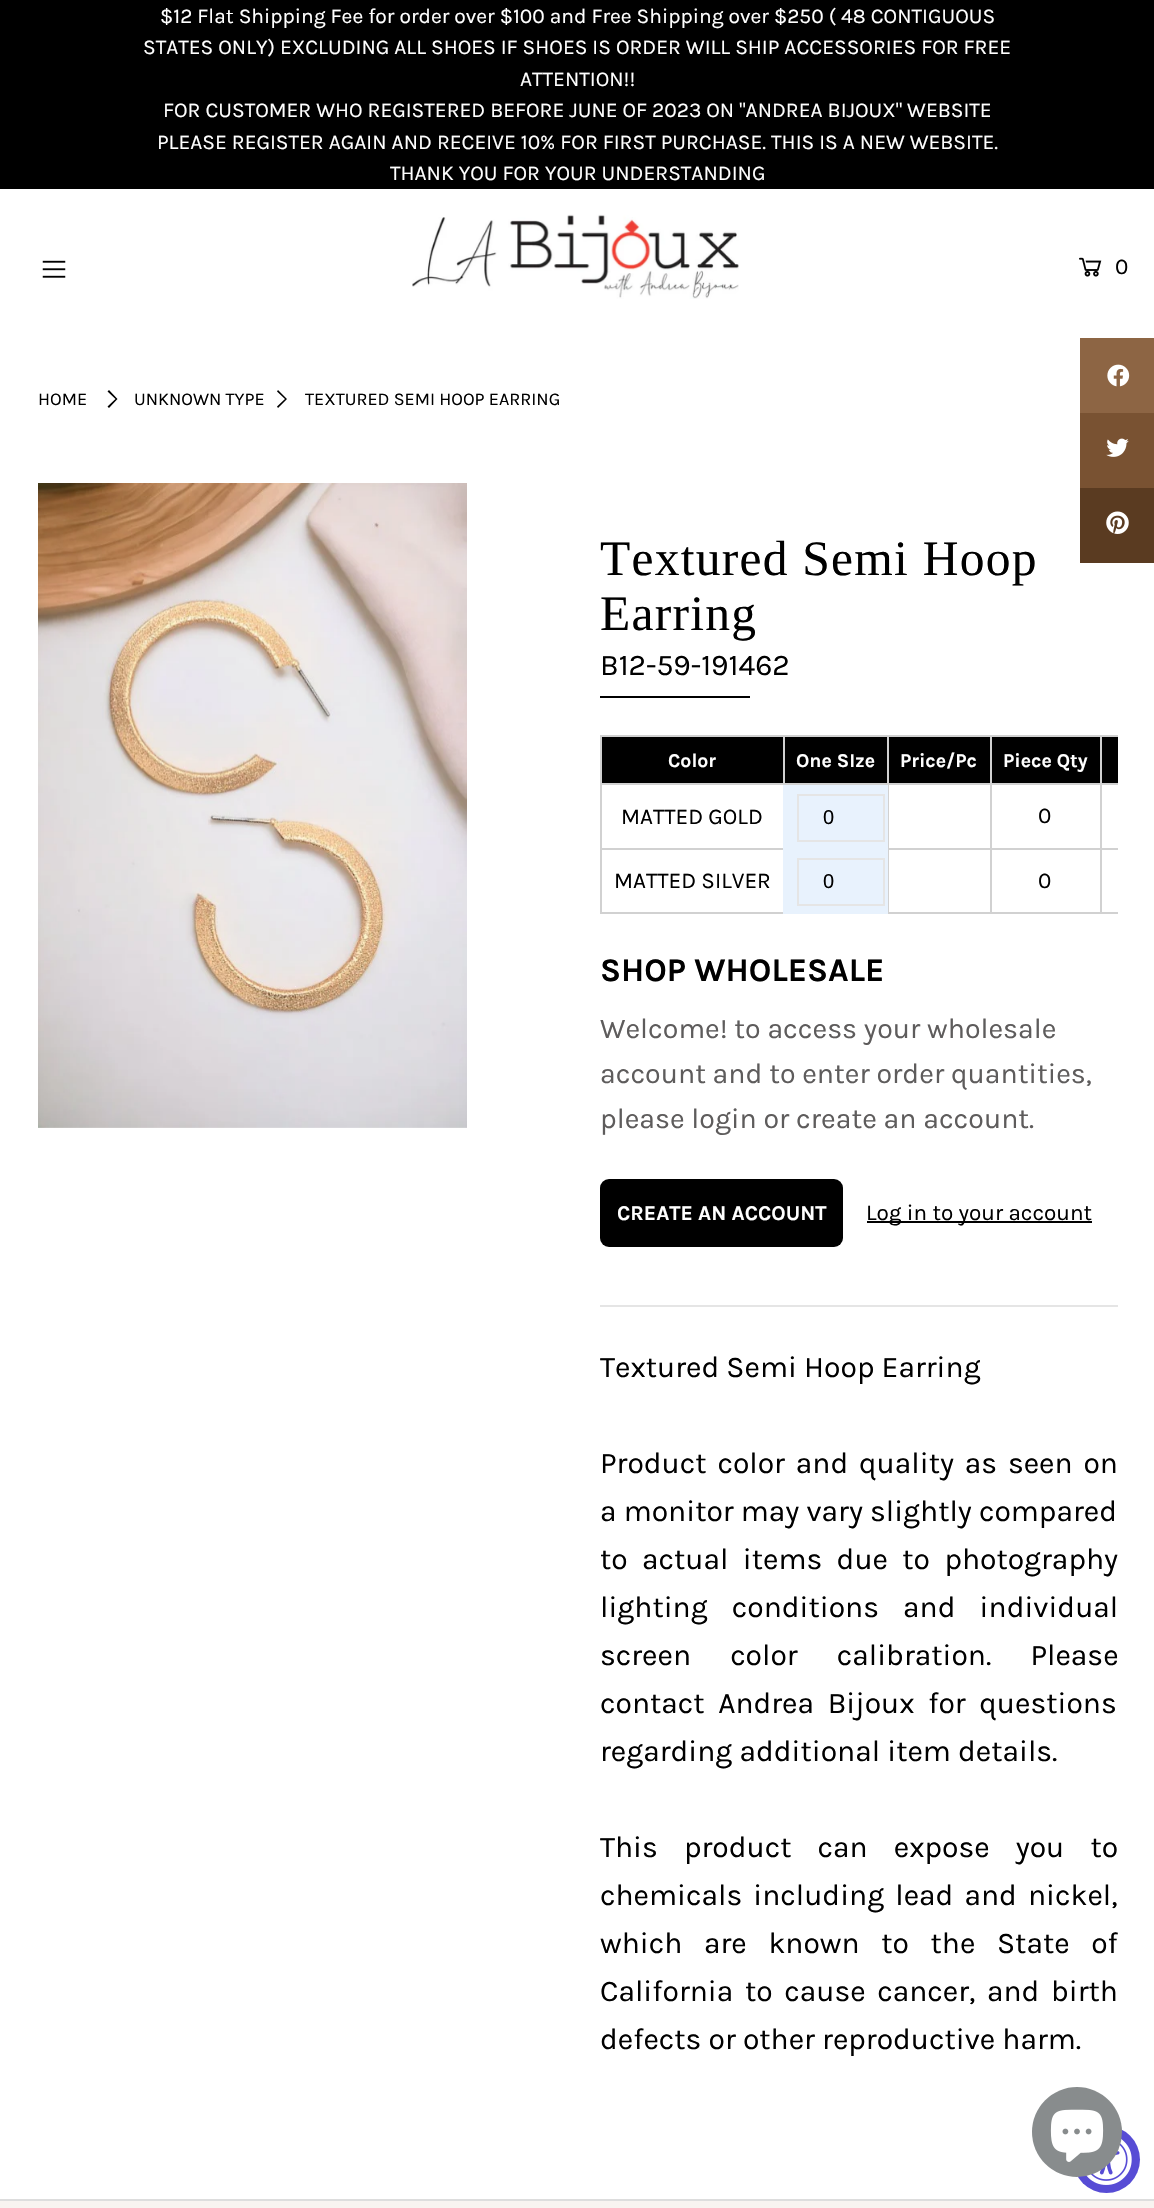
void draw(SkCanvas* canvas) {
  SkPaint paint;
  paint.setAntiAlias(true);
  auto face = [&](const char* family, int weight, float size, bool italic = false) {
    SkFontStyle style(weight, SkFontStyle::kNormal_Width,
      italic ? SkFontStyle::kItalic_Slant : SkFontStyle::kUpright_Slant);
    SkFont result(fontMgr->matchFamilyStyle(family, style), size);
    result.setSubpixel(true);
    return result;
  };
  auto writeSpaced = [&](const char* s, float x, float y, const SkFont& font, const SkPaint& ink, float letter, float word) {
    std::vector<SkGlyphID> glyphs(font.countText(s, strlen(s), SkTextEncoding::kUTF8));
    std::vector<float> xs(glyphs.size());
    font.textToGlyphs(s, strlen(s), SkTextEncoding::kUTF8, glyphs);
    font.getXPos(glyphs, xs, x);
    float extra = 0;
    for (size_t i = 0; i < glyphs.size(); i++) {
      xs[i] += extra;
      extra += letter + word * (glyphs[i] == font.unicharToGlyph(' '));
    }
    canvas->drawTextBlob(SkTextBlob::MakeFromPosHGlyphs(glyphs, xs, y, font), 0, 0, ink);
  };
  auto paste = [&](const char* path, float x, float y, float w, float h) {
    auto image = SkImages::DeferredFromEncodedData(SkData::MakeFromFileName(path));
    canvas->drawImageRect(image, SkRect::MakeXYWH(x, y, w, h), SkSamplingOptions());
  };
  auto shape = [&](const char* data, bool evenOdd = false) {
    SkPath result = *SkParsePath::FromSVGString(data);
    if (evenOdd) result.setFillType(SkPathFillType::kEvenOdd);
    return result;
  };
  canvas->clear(0xffffffff);
  paint.setColor(0xff000000);
  canvas->drawRect(SkRect::MakeXYWH(0, 0, 1154, 189), paint);
  paste("img/1.png", 42, 260, 24, 18);
  paste("img/2.png", 412, 214, 327, 85);
  paste("img/3.png", 1079, 257, 23, 20);
  paint.setColor(0xff8d6544);
  canvas->drawRect(SkRect::MakeXYWH(1080, 338, 74, 75), paint);
  paste("img/4.png", 1107, 364, 23, 23);
  paint.setColor(0xff795232);
  canvas->drawRect(SkRect::MakeXYWH(1080, 413, 74, 75), paint);
  paste("img/5.png", 1106, 438, 23, 19);
  paint.setColor(0xff5a3b21);
  canvas->drawRect(SkRect::MakeXYWH(1080, 488, 74, 75), paint);
  paste("img/6.png", 1106, 511, 23, 23);
  paint.setColor(0xff000000);
  canvas->drawPath(shape("M109 390L117.5 399L109 408L107.5 406.5L115.5 399L107.5 391.5Z"), paint);
  canvas->drawPath(shape("M278 390L287 399L278 408L277 406.5L285 399L277 391.5Z"), paint);
  paste("img/7.png", 38, 483, 429, 645);
  {
    const struct { float x, y, w, h; SkColor color; } items[] = {
      {600, 696, 150, 2, 0xff000000},
      {600, 1305, 518, 2, 0xffe5e5e5},
      {602, 737, 181, 46, 0xff000000},
      {1100, 735, 18, 2, 0xffd1d1d1},
      {1100, 783, 18, 2, 0xffd1d1d1},
      {1100, 848, 18, 2, 0xffd1d1d1},
      {1100, 912, 18, 2, 0xffd1d1d1},
      {1100, 848, 2, 66, 0xffd1d1d1},
      {990, 848, 111, 2, 0xffd1d1d1},
      {1100, 783, 2, 66, 0xffd1d1d1},
      {990, 783, 111, 2, 0xffd1d1d1},
      {1100, 735, 2, 50, 0xffd1d1d1},
      {990, 735, 111, 2, 0xffd1d1d1},
      {990, 912, 111, 2, 0xffd1d1d1},
      {990, 848, 2, 66, 0xffd1d1d1},
      {887, 848, 105, 2, 0xffd1d1d1},
      {990, 783, 2, 66, 0xffd1d1d1},
      {600, 783, 392, 2, 0xffd1d1d1},
      {990, 735, 2, 50, 0xffd1d1d1},
      {887, 735, 105, 2, 0xffd1d1d1},
      {887, 912, 105, 2, 0xffd1d1d1},
      {888, 848, 1, 66, 0xffd1d1d1},
      {888, 783, 1, 66, 0xffd1d1d1},
      {887, 735, 2, 50, 0xffd1d1d1},
      {783, 735, 105, 2, 0xffd1d1d1},
      {783, 735, 2, 50, 0xffd1d1d1},
      {600, 735, 185, 2, 0xffd1d1d1},
      {600, 848, 185, 2, 0xffd1d1d1},
      {600, 912, 185, 2, 0xffd1d1d1},
      {600, 848, 2, 66, 0xffd1d1d1},
      {600, 783, 2, 66, 0xffd1d1d1},
      {600, 735, 2, 50, 0xffd1d1d1},
      {785, 737, 102, 46, 0xff000000},
      {889, 737, 101, 46, 0xff000000},
      {992, 737, 108, 46, 0xff000000},
      {1102, 737, 16, 46, 0xff000000},
      {783, 785, 105, 129, 0xffe8f2fd},
    };
    for (auto [x, y, w, h, color] : items) {
      paint.setColor(color);
      canvas->drawRect(SkRect::MakeXYWH(x, y, w, h), paint);
    }
  }
  paint.setStroke(true);
  paint.setStrokeWidth(2);
  paint.setColor(0xffe5e5e5);
  canvas->drawRect(SkRect::MakeXYWH(798, 795, 86, 46), paint);
  canvas->drawRect(SkRect::MakeXYWH(798, 859, 86, 46), paint);
  paint.setStroke(false);
  paint.setColor(0xff000000);
  canvas->drawRoundRect(SkRect::MakeXYWH(600, 1179, 243, 68), 9, 9, paint);
  {
    const struct { float x, y, w, h; SkColor color; } items[] = {
      {867, 1221, 225, 2, 0xff000000},
      {0, 2201, 1154, 7, 0xfff8f3f0},
      {0, 2199, 1154, 2, 0xffdddddd},
    };
    for (auto [x, y, w, h, color] : items) {
      paint.setColor(color);
      canvas->drawRect(SkRect::MakeXYWH(x, y, w, h), paint);
    }
  }
  paint.setColor(0xff574cd5);
  canvas->drawCircle(1106.5f, 2159.5f, 33.5f, paint);
  paste("img/9.png", 1086, 2139, 46, 46);
  paint.setColor(0xff888c8d);
  canvas->drawCircle(1077, 2132, 45, paint);
  paste("img/8.png", 1050, 2109, 54, 53);
  auto f0 = face("Karla", 400, 21);
  paint.setColor(0xffffffff);
  {
    const struct { const char* s; float x, y; } items[] = {
      {"$12 Flat Shipping Fee for order over $100 and Free Shipping over $250 ( 48 CONTIGUOUS", 160, 23},
      {"STATES ONLY) EXCLUDING ALL SHOES IF SHOES IS ORDER WILL SHIP ACCESSORIES FOR FREE", 143, 54},
      {"ATTENTION!!", 520, 86},
      {"FOR CUSTOMER WHO REGISTERED BEFORE JUNE OF 2023 ON \"ANDREA BIJOUX\" WEBSITE", 163, 117},
      {"PLEASE REGISTER AGAIN AND RECEIVE 10% FOR FIRST PURCHASE. THIS IS A NEW WEBSITE.", 157, 149},
      {"THANK YOU FOR YOUR UNDERSTANDING", 390, 180},
    };
    for (auto [s, x, y] : items) {
      canvas->drawString(s, x, y, f0, paint);
    }
  }
  auto f1 = face("Karla", 400, 22.5f);
  paint.setColor(0xff000000);
  canvas->drawString("0", 1115, 274, f1, paint);
  auto f2 = face("Karla", 400, 18);
  {
    const struct { const char* s; float x, y; } items[] = {
      {"HOME", 38, 405},
      {"UNKNOWN TYPE", 134, 405},
      {"TEXTURED SEMI HOOP EARRING", 305, 405},
    };
    for (auto [s, x, y] : items) {
      canvas->drawString(s, x, y, f2, paint);
    }
  }
  auto f3 = face("Liberation Serif", 400, 49.5f);
  writeSpaced("Textured Semi Hoop", 600, 575, f3, paint, 1.25f, 0);
  writeSpaced("Earring", 600, 630, f3, paint, 1.25f, 0);
  auto f4 = face("Karla", 400, 30);
  canvas->drawString("B12-59-191462", 600, 675, f4, paint);
  auto f5 = face("Karla", 700, 19.5f);
  paint.setColor(0xffffffff);
  {
    const struct { const char* s; float x, y; } items[] = {
      {"Color", 668, 767},
      {"One SIze", 796, 767},
      {"Price/Pc", 900, 767},
      {"Piece Qty", 1003, 767},
    };
    for (auto [s, x, y] : items) {
      canvas->drawString(s, x, y, f5, paint);
    }
  }
  paint.setColor(0xff000000);
  canvas->drawString("0", 1038, 823, f1, paint);
  canvas->drawString("MATTED GOLD", 621, 824, f1, paint);
  auto f6 = face("Liberation Sans", 400, 20);
  canvas->drawString("0", 823, 824, f6, paint);
  canvas->drawString("MATTED SILVER", 614, 888, f1, paint);
  canvas->drawString("0", 823, 888, f6, paint);
  canvas->drawString("0", 1038, 888, f1, paint);
  auto f7 = face("Karla", 700, 33);
  canvas->drawString("SHOP WHOLESALE", 600, 981, f7, paint);
  auto f8 = face("Karla", 400, 28.5f);
  paint.setColor(0xff5e5c5c);
  {
    const struct { const char* s; float x, y; } items[] = {
      {"Welcome! to access your wholesale", 600, 1038},
      {"account and to enter order quantities,", 600, 1083},
      {"please login or create an account.", 600, 1128},
    };
    for (auto [s, x, y] : items) {
      canvas->drawString(s, x, y, f8, paint);
    }
  }
  auto f9 = face("Karla", 700, 21);
  paint.setColor(0xffffffff);
  canvas->drawString("CREATE AN ACCOUNT", 617, 1220, f9, paint);
  paint.setColor(0xff000000);
  canvas->drawString("Log in to your account", 866, 1220, f1, paint);
  canvas->drawString("Textured Semi Hoop Earring", 600, 1377, f4, paint);
  writeSpaced("Product color and quality as seen on", 600, 1473, f4, paint, 0, 3.75f);
  canvas->drawString("a monitor may vary slightly compared", 600, 1521, f4, paint);
  writeSpaced("to actual items due to photography", 600, 1569, f4, paint, 0, 7.25f);
  writeSpaced("lighting conditions and individual", 600, 1617, f4, paint, 0, 17);
  writeSpaced("screen color calibration. Please", 600, 1665, f4, paint, 0, 32);
  writeSpaced("contact Andrea Bijoux for questions", 600, 1713, f4, paint, 0, 6.5f);
  canvas->drawString("regarding additional item details.", 600, 1761, f4, paint);
  writeSpaced("This product can expose you to", 600, 1857, f4, paint, 0, 19);
  writeSpaced("chemicals including lead and nickel,", 600, 1905, f4, paint, 0, 4);
  writeSpaced("which are known to the State of", 600, 1953, f4, paint, 0, 14.5f);
  writeSpaced("California to cause cancer, and birth", 600, 2001, f4, paint, 0, 4.5f);
  canvas->drawString("defects or other reproductive harm.", 600, 2049, f4, paint);
}
